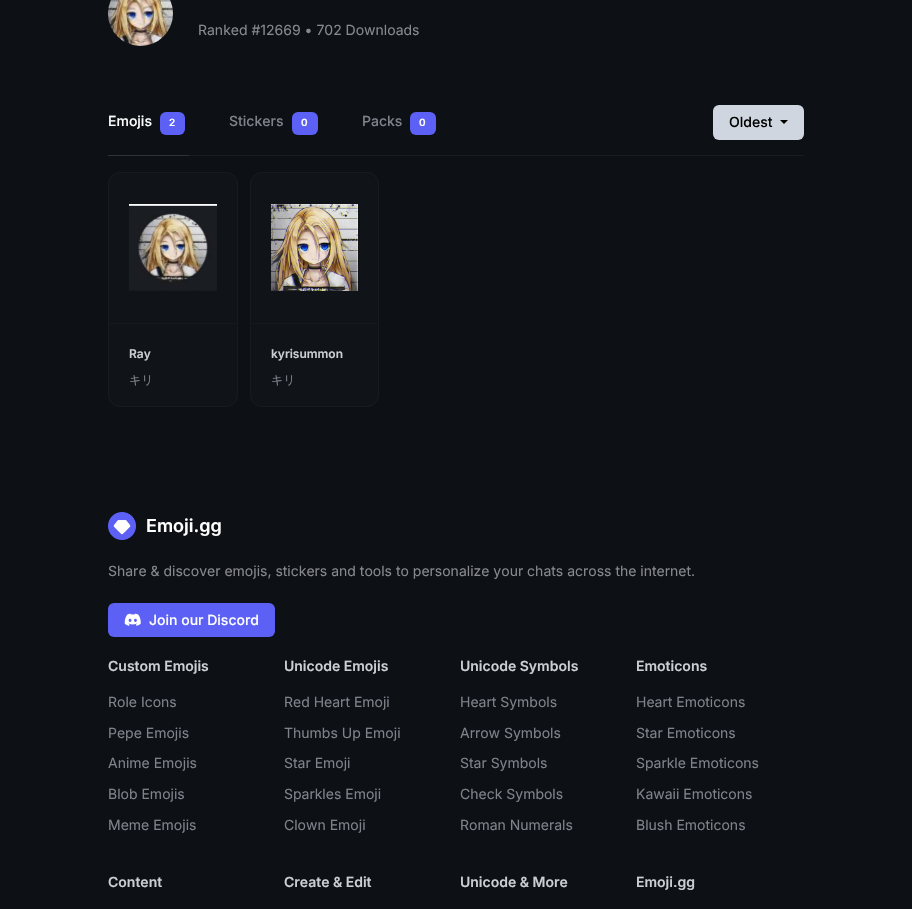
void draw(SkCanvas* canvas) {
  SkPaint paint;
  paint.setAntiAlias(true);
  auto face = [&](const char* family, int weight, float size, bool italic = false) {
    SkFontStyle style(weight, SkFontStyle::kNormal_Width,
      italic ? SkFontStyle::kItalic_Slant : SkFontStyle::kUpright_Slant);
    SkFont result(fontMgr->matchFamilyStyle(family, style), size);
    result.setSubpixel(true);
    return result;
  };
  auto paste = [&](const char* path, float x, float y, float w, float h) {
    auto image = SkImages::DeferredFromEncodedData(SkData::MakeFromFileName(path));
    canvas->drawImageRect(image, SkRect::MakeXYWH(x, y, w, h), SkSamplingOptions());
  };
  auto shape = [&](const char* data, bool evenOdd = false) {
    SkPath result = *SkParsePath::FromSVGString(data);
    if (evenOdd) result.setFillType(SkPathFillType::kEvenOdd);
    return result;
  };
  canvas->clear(0xff0d1014);
  paste("img/1.png", 108, 0, 65, 46);
  paint.setColor(0xff191c20);
  canvas->drawRect(SkRect::MakeXYWH(189, 155, 615, 1), paint);
  paint.setColor(0xff303336);
  canvas->drawRect(SkRect::MakeXYWH(108, 155, 81, 1), paint);
  paint.setColor(0xff5c60f5);
  canvas->drawRoundRect(SkRect::MakeXYWH(160, 112, 25, 23), 6, 6, paint);
  canvas->drawRoundRect(SkRect::MakeXYWH(292, 112, 26, 23), 6, 6, paint);
  canvas->drawRoundRect(SkRect::MakeXYWH(410, 112, 26, 23), 6, 6, paint);
  paint.setColor(0xffcfd6df);
  canvas->drawRoundRect(SkRect::MakeXYWH(713, 105, 91, 35), 6, 6, paint);
  paint.setColor(0xff000000);
  canvas->drawPath(shape("M780 120H788L784 124Z"), paint);
  paint.setColor(0xff101318);
  canvas->drawRoundRect(SkRect::MakeXYWH(108.5f, 172.5f, 129, 234), 11.5f, 11.5f, paint);
  paint.setStroke(true);
  paint.setStrokeWidth(1);
  paint.setColor(0xff181a20);
  canvas->drawRoundRect(SkRect::MakeXYWH(108.5f, 172.5f, 129, 234), 11.5f, 11.5f, paint);
  paste("img/2.png", 129, 204, 88, 87);
  paint.setStroke(false);
  paint.setColor(0xff15181d);
  canvas->drawRect(SkRect::MakeXYWH(109, 323, 128, 1), paint);
  paint.setColor(0xff101318);
  canvas->drawRoundRect(SkRect::MakeXYWH(250.5f, 172.5f, 128, 234), 11.5f, 11.5f, paint);
  paint.setStroke(true);
  paint.setColor(0xff181a20);
  canvas->drawRoundRect(SkRect::MakeXYWH(250.5f, 172.5f, 128, 234), 11.5f, 11.5f, paint);
  paste("img/3.png", 271, 204, 87, 87);
  paint.setStroke(false);
  paint.setColor(0xff15181d);
  canvas->drawRect(SkRect::MakeXYWH(251, 323, 127, 1), paint);
  paste("img/4.png", 108, 512, 28, 28);
  paint.setColor(0xff5c60f5);
  canvas->drawRoundRect(SkRect::MakeXYWH(108, 603, 167, 34), 6, 6, paint);
  paste("img/5.png", 124, 613, 17, 13);
  auto f0 = face("Inter", 400, 14);
  paint.setColor(0xff87898c);
  canvas->drawString("Ranked #12669 • 702 Downloads", 198, 35, f0, paint);
  auto f1 = face("Inter", 500, 14);
  paint.setColor(0xffffffff);
  canvas->drawString("Emojis", 108, 126, f1, paint);
  auto f2 = face("Inter", 600, 10);
  canvas->drawString("2", 169, 126, f2, paint);
  paint.setColor(0xff7e828b);
  canvas->drawString("Stickers", 229, 126, f1, paint);
  paint.setColor(0xffffffff);
  canvas->drawString("0", 301, 126, f2, paint);
  paint.setColor(0xff7e828b);
  canvas->drawString("Packs", 362, 126, f1, paint);
  paint.setColor(0xffffffff);
  canvas->drawString("0", 419, 126, f2, paint);
  paint.setColor(0xff000000);
  canvas->drawString("Oldest", 729, 127, f1, paint);
  auto f3 = face("Inter", 600, 12);
  paint.setColor(0xffcbced2);
  canvas->drawString("Ray", 129, 358, f3, paint);
  auto f4 = face("WenQuanYi Zen Hei", 500, 12);
  paint.setColor(0xff7e828b);
  canvas->drawString("キリ", 129, 384, f4, paint);
  paint.setColor(0xffcbced2);
  canvas->drawString("kyrisummon", 271, 358, f3, paint);
  paint.setColor(0xff7e828b);
  canvas->drawString("キリ", 271, 384, f4, paint);
  auto f5 = face("Inter", 600, 18);
  paint.setColor(0xffffffff);
  canvas->drawString("Emoji.gg", 146, 532, f5, paint);
  paint.setColor(0xff87898c);
  canvas->drawString("Share & discover emojis, stickers and tools to personalize your chats across the internet.", 108, 576, f0, paint);
  paint.setColor(0xffffffff);
  canvas->drawString("Join our Discord", 149, 625, f1, paint);
  auto f6 = face("Inter", 600, 14);
  paint.setColor(0xffcbced2);
  canvas->drawString("Custom Emojis", 108, 671, f6, paint);
  paint.setColor(0xff7e828b);
  {
    const struct { const char* s; float x, y; } items[] = {
      {"Role Icons", 108, 707},
      {"Pepe Emojis", 108, 738},
      {"Anime Emojis", 108, 768},
      {"Blob Emojis", 108, 799},
      {"Meme Emojis", 108, 830},
    };
    for (auto [s, x, y] : items) {
      canvas->drawString(s, x, y, f0, paint);
    }
  }
  paint.setColor(0xffcbced2);
  canvas->drawString("Unicode Emojis", 284, 671, f6, paint);
  paint.setColor(0xff7e828b);
  {
    const struct { const char* s; float x, y; } items[] = {
      {"Red Heart Emoji", 284, 707},
      {"Thumbs Up Emoji", 284, 738},
      {"Star Emoji", 284, 768},
      {"Sparkles Emoji", 284, 799},
      {"Clown Emoji", 284, 830},
    };
    for (auto [s, x, y] : items) {
      canvas->drawString(s, x, y, f0, paint);
    }
  }
  paint.setColor(0xffcbced2);
  canvas->drawString("Unicode Symbols", 460, 671, f6, paint);
  paint.setColor(0xff7e828b);
  {
    const struct { const char* s; float x, y; } items[] = {
      {"Heart Symbols", 460, 707},
      {"Arrow Symbols", 460, 738},
      {"Star Symbols", 460, 768},
      {"Check Symbols", 460, 799},
      {"Roman Numerals", 460, 830},
    };
    for (auto [s, x, y] : items) {
      canvas->drawString(s, x, y, f0, paint);
    }
  }
  paint.setColor(0xffcbced2);
  canvas->drawString("Emoticons", 636, 671, f6, paint);
  paint.setColor(0xff7e828b);
  {
    const struct { const char* s; float x, y; } items[] = {
      {"Heart Emoticons", 636, 707},
      {"Star Emoticons", 636, 738},
      {"Sparkle Emoticons", 636, 768},
      {"Kawaii Emoticons", 636, 799},
      {"Blush Emoticons", 636, 830},
    };
    for (auto [s, x, y] : items) {
      canvas->drawString(s, x, y, f0, paint);
    }
  }
  paint.setColor(0xffcbced2);
  {
    const struct { const char* s; float x, y; } items[] = {
      {"Content", 108, 887},
      {"Create & Edit", 284, 887},
      {"Unicode & More", 460, 887},
      {"Emoji.gg", 636, 887},
    };
    for (auto [s, x, y] : items) {
      canvas->drawString(s, x, y, f6, paint);
    }
  }
}
